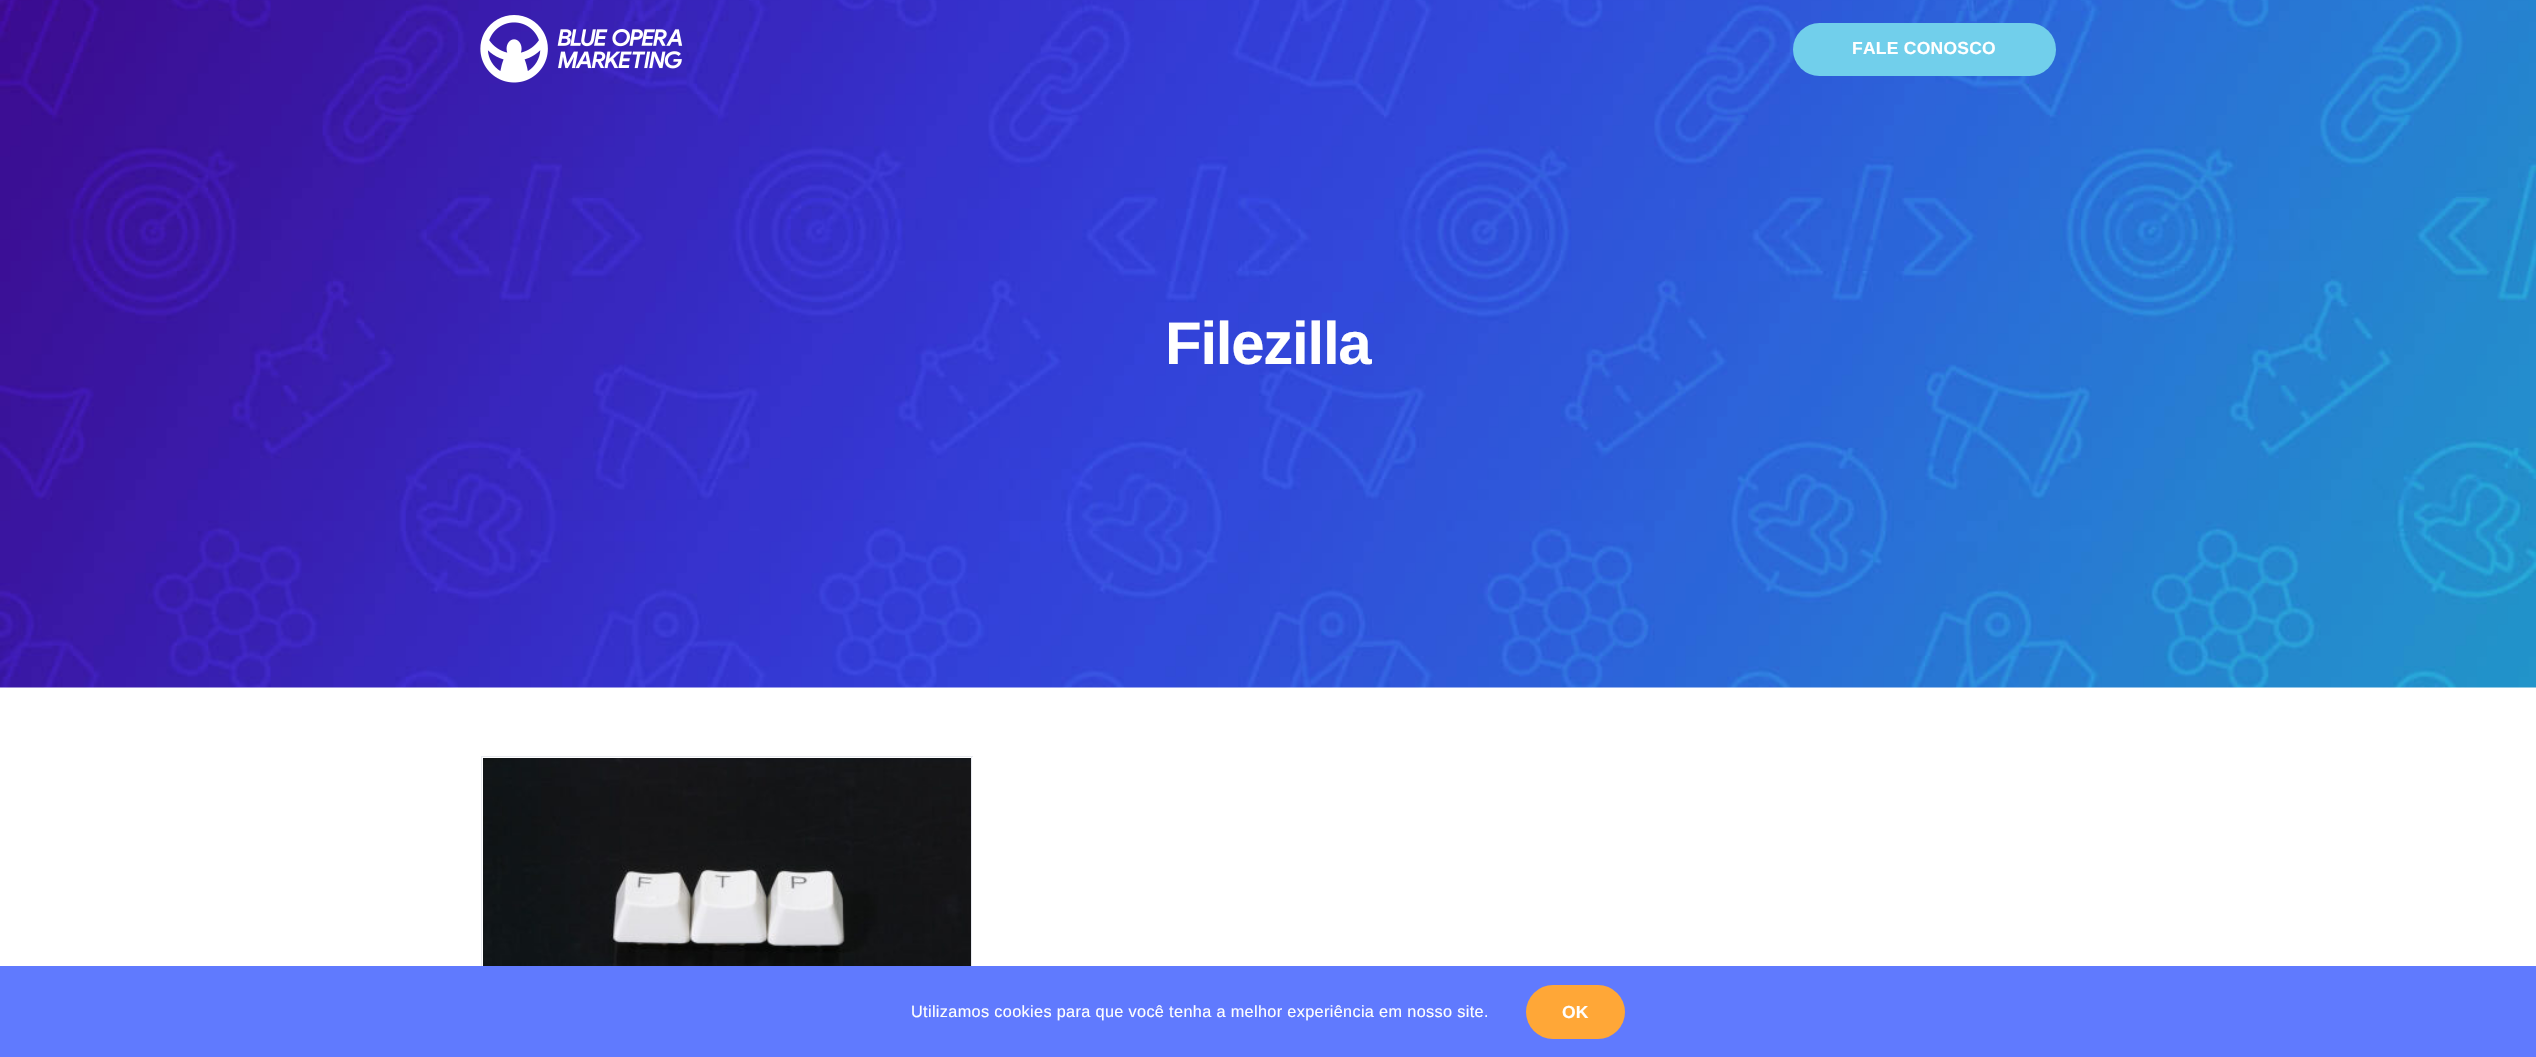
void draw(SkCanvas* canvas) {
  SkPaint paint;
  paint.setAntiAlias(true);
  auto face = [&](const char* family, int weight, float size, bool italic = false) {
    SkFontStyle style(weight, SkFontStyle::kNormal_Width,
      italic ? SkFontStyle::kItalic_Slant : SkFontStyle::kUpright_Slant);
    SkFont result(fontMgr->matchFamilyStyle(family, style), size);
    result.setSubpixel(true);
    return result;
  };
  auto writeSpaced = [&](const char* s, float x, float y, const SkFont& font, const SkPaint& ink, float letter, float word) {
    std::vector<SkGlyphID> glyphs(font.countText(s, strlen(s), SkTextEncoding::kUTF8));
    std::vector<float> xs(glyphs.size());
    font.textToGlyphs(s, strlen(s), SkTextEncoding::kUTF8, glyphs);
    font.getXPos(glyphs, xs, x);
    float extra = 0;
    for (size_t i = 0; i < glyphs.size(); i++) {
      xs[i] += extra;
      extra += letter + word * (glyphs[i] == font.unicharToGlyph(' '));
    }
    canvas->drawTextBlob(SkTextBlob::MakeFromPosHGlyphs(glyphs, xs, y, font), 0, 0, ink);
  };
  auto paste = [&](const char* path, float x, float y, float w, float h) {
    auto image = SkImages::DeferredFromEncodedData(SkData::MakeFromFileName(path));
    canvas->drawImageRect(image, SkRect::MakeXYWH(x, y, w, h), SkSamplingOptions());
  };
  canvas->clear(0xffffffff);
  paste("img/2.png", 0, 0, 2536, 688);
  paste("img/1.png", 480, 15, 203, 68);
  paint.setColor(0xff71cfeb);
  canvas->drawRoundRect(SkRect::MakeXYWH(1793, 23, 263, 53), 26.5f, 26.5f, paint);
  {
    const struct { float x, y, w, h; SkColor color; } items[] = {
      {481, 756, 492, 1, 0xffe8eaf0},
      {971, 756, 1, 210, 0xffe8eaf0},
      {481, 756, 1, 210, 0xffe8eaf0},
    };
    for (auto [x, y, w, h, color] : items) {
      paint.setColor(color);
      canvas->drawRect(SkRect::MakeXYWH(x, y, w, h), paint);
    }
  }
  paste("img/3.png", 483, 758, 488, 208);
  paint.setColor(0xff607afe);
  canvas->drawRect(SkRect::MakeXYWH(0, 966, 2536, 91), paint);
  paint.setColor(0xffffa737);
  canvas->drawRoundRect(SkRect::MakeXYWH(1526, 985, 99, 54), 27, 27, paint);
  auto f0 = face("Liberation Sans", 700, 17.5f);
  paint.setColor(0xffffffff);
  writeSpaced("FALE CONOSCO", 1852, 54, f0, paint, 0.25f, 0);
  auto f1 = face("Liberation Sans", 700, 60);
  writeSpaced("Filezilla", 1165, 364, f1, paint, -1.25f, 0);
  auto f2 = face("Liberation Sans", 400, 16.25f);
  writeSpaced("Utilizamos cookies para que você tenha a melhor experiência em nosso site.", 911, 1017, f2, paint, 0.35f, 0);
  writeSpaced("OK", 1562, 1018, f0, paint, 0.25f, 0);
}
